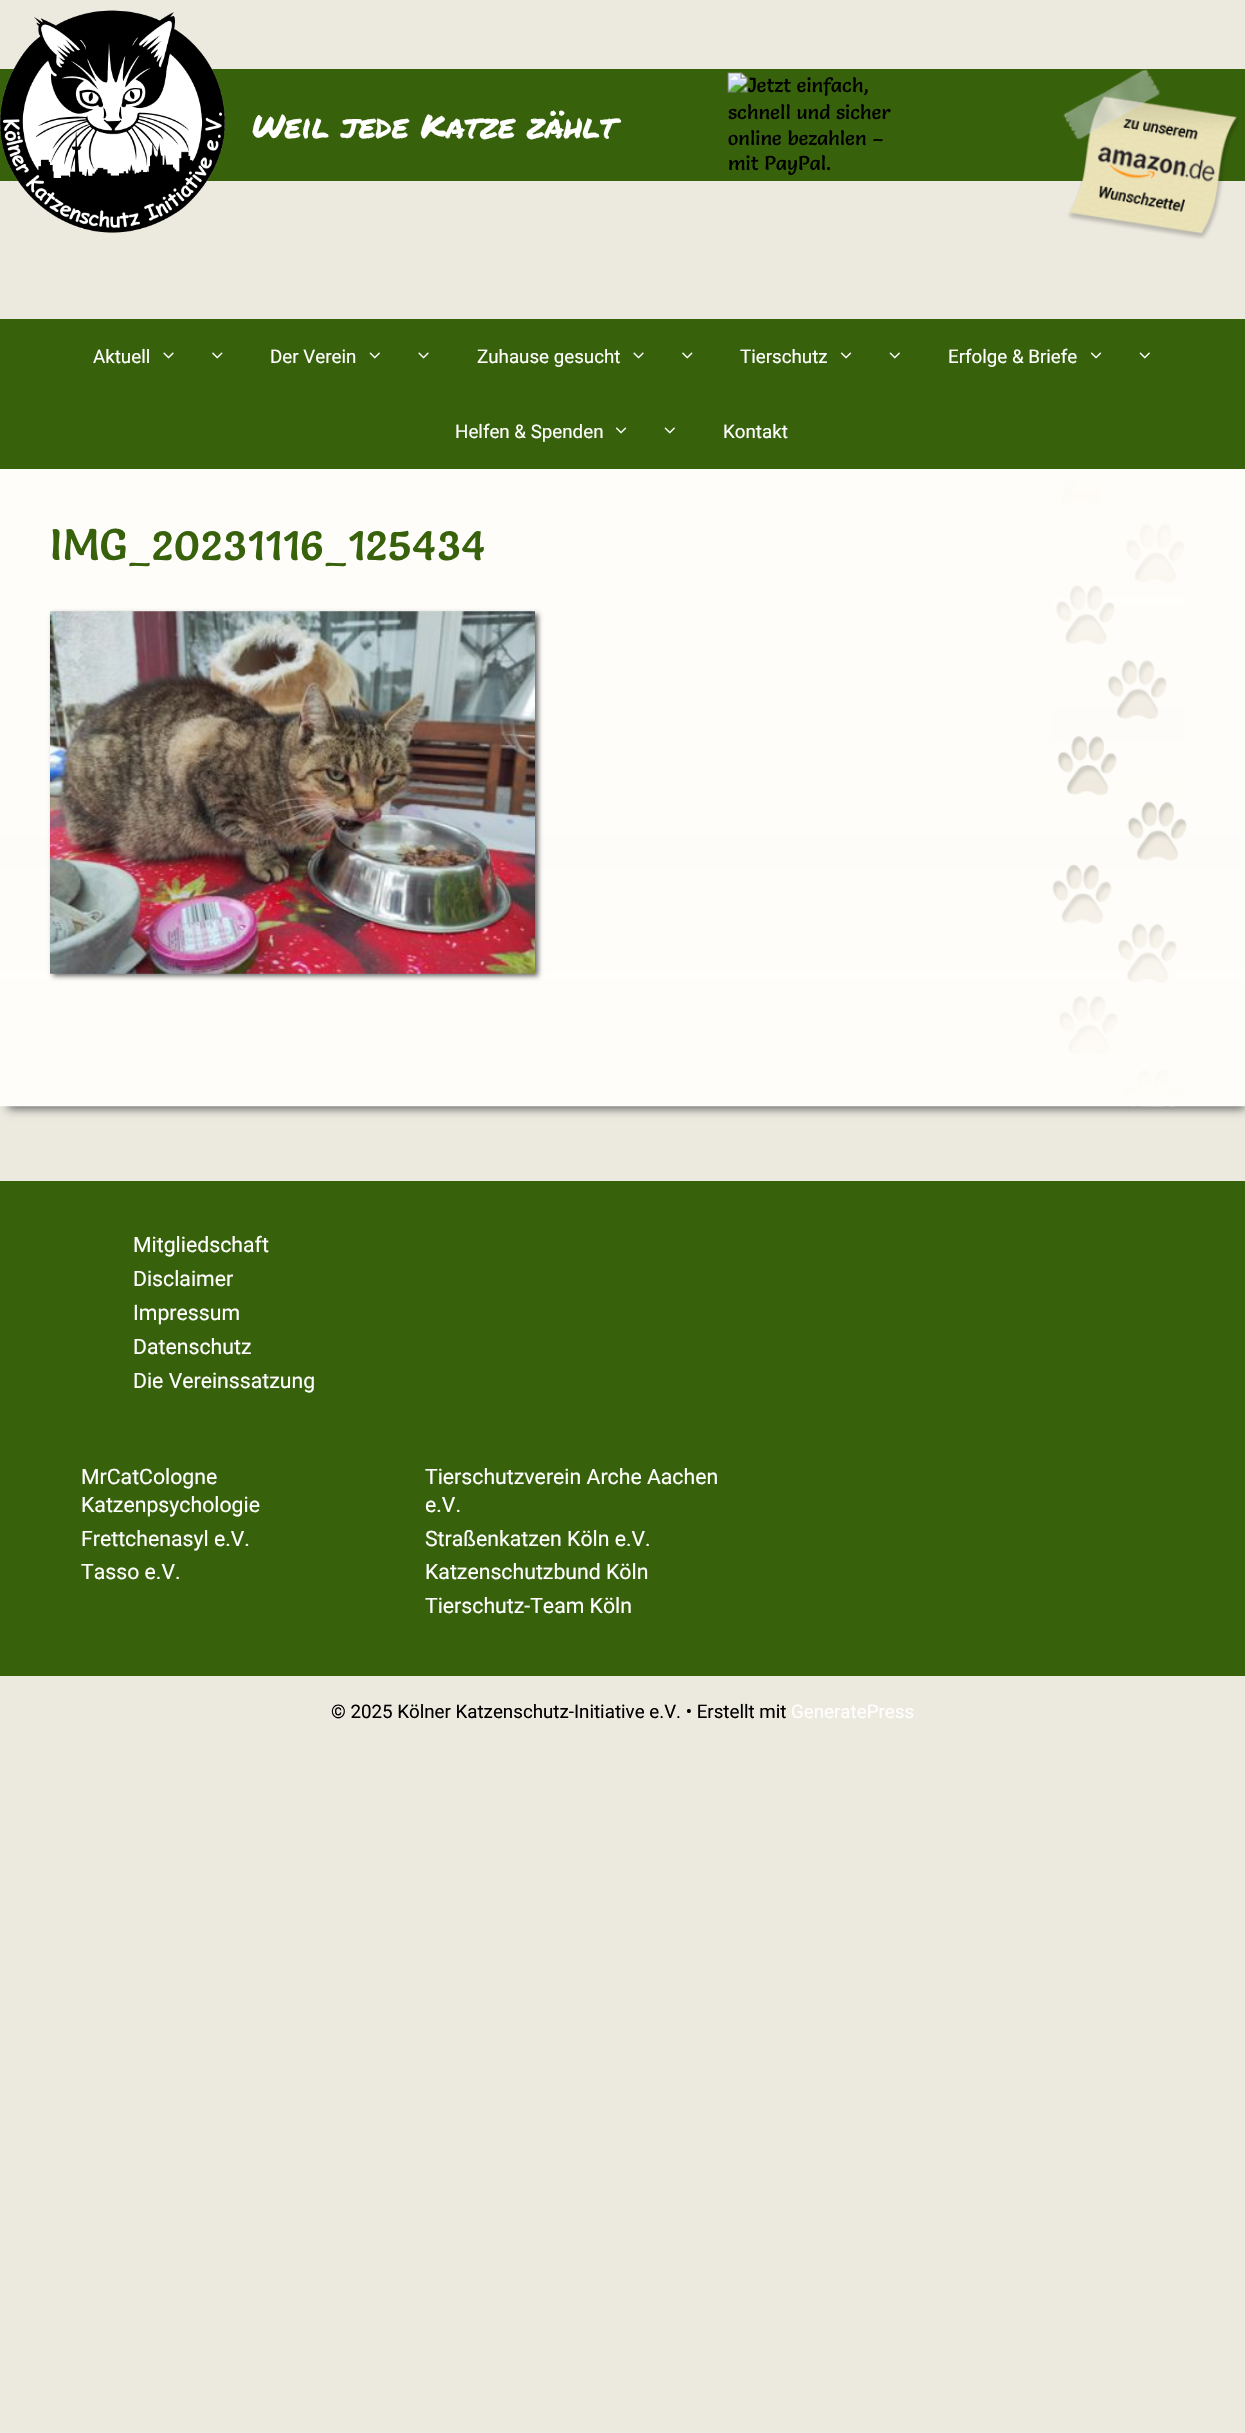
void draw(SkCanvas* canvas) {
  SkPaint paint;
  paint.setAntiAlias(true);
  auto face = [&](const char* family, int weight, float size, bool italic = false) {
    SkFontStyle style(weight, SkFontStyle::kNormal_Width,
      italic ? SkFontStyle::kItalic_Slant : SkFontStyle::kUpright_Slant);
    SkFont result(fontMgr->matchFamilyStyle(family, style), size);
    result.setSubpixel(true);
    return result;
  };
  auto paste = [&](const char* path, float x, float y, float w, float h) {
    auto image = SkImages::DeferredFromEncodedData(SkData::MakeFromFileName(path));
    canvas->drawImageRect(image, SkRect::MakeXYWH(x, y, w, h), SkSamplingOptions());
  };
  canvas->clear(0xffeceadf);
  paint.setColor(0xff38610b);
  canvas->drawRect(SkRect::MakeXYWH(0, 69, 1245, 112), paint);
  paste("img/1.png", 0, 10, 225, 223);
  paste("img/2.png", 727, 72, 164, 103);
  paste("img/3.png", 1063, 69, 176, 170);
  paint.setColor(0xff666666);
  paint.setMaskFilter(SkMaskFilter::MakeBlur(kNormal_SkBlurStyle, 4.5f));
  canvas->drawRect(SkRect::MakeXYWH(8, 404, 1237, 705), paint);
  paint.setMaskFilter(nullptr);
  paint.setColor(0xff38610b);
  canvas->drawRect(SkRect::MakeXYWH(0, 319, 1245, 150), paint);
  paste("img/4.png", 163, 352, 11, 7);
  paste("img/5.png", 212, 352, 11, 7);
  paste("img/6.png", 369, 352, 11, 7);
  paste("img/4.png", 418, 352, 11, 7);
  paste("img/4.png", 633, 352, 11, 7);
  paste("img/5.png", 682, 352, 11, 7);
  paste("img/7.png", 840, 352, 12, 7);
  paste("img/6.png", 889, 352, 11, 7);
  paste("img/7.png", 1090, 352, 12, 7);
  paste("img/6.png", 1139, 352, 11, 7);
  paste("img/7.png", 615, 427, 12, 7);
  paste("img/6.png", 664, 427, 11, 7);
  paint.setColor(0xfffefdfa);
  canvas->drawRect(SkRect::MakeXYWH(0, 469, 1245, 634), paint);
  paste("img/8.png", 1052, 473, 135, 634);
  paste("img/9.png", 0, 767, 1245, 340);
  paste("img/10.png", 1052, 469, 132, 337);
  paint.setColor(0xff666666);
  paint.setMaskFilter(SkMaskFilter::MakeBlur(kNormal_SkBlurStyle, 2.5f));
  canvas->drawRect(SkRect::MakeXYWH(53, 614, 485, 362), paint);
  paint.setMaskFilter(nullptr);
  paste("img/11.png", 50, 611, 485, 363);
  paint.setColor(0xff38610b);
  canvas->drawRect(SkRect::MakeXYWH(0, 1181, 1245, 495), paint);
  auto f0 = face("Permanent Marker", 400, 32.5f);
  paint.setColor(0xffffffff);
  canvas->drawString("Weil jede Katze zählt", 252, 138, f0, paint);
  auto f1 = face("Roboto", 400, 18.75f);
  {
    const struct { const char* s; float x, y; } items[] = {
      {"Aktuell", 93, 363},
      {"Der Verein", 270, 363},
      {"Zuhause gesucht", 477, 363},
      {"Tierschutz", 740, 363},
      {"Erfolge & Briefe", 948, 363},
      {"Helfen & Spenden", 455, 438},
      {"Kontakt", 723, 438},
    };
    for (auto [s, x, y] : items) {
      canvas->drawString(s, x, y, f1, paint);
    }
  }
  auto f2 = face("Salsa", 400, 43.75f);
  paint.setColor(0xff38610b);
  canvas->drawString("IMG_20231116_125434", 50, 560, f2, paint);
  auto f3 = face("Roboto", 400, 21.25f);
  paint.setColor(0xffffffff);
  {
    const struct { const char* s; float x, y; } items[] = {
      {"Mitgliedschaft", 133, 1252},
      {"Disclaimer", 133, 1286},
      {"Impressum", 133, 1320},
      {"Datenschutz", 133, 1354},
      {"Die Vereinssatzung", 133, 1388},
      {"MrCatCologne", 81, 1484},
      {"Katzenpsychologie", 81, 1512},
      {"Frettchenasyl e.V.", 81, 1546},
      {"Tasso e.V.", 81, 1579},
      {"Tierschutzverein Arche Aachen", 425, 1484},
      {"e.V.", 425, 1512},
      {"Straßenkatzen Köln e.V.", 425, 1546},
      {"Katzenschutzbund Köln", 425, 1579},
      {"Tierschutz-Team Köln", 425, 1613},
    };
    for (auto [s, x, y] : items) {
      canvas->drawString(s, x, y, f3, paint);
    }
  }
  paint.setColor(0xff000000);
  canvas->drawString("© 2025 Kölner Katzenschutz-Initiative e.V. • Erstellt mit", 331, 1718, f1, paint);
  paint.setColor(0xffffffff);
  canvas->drawString("GeneratePress", 791, 1718, f1, paint);
}
